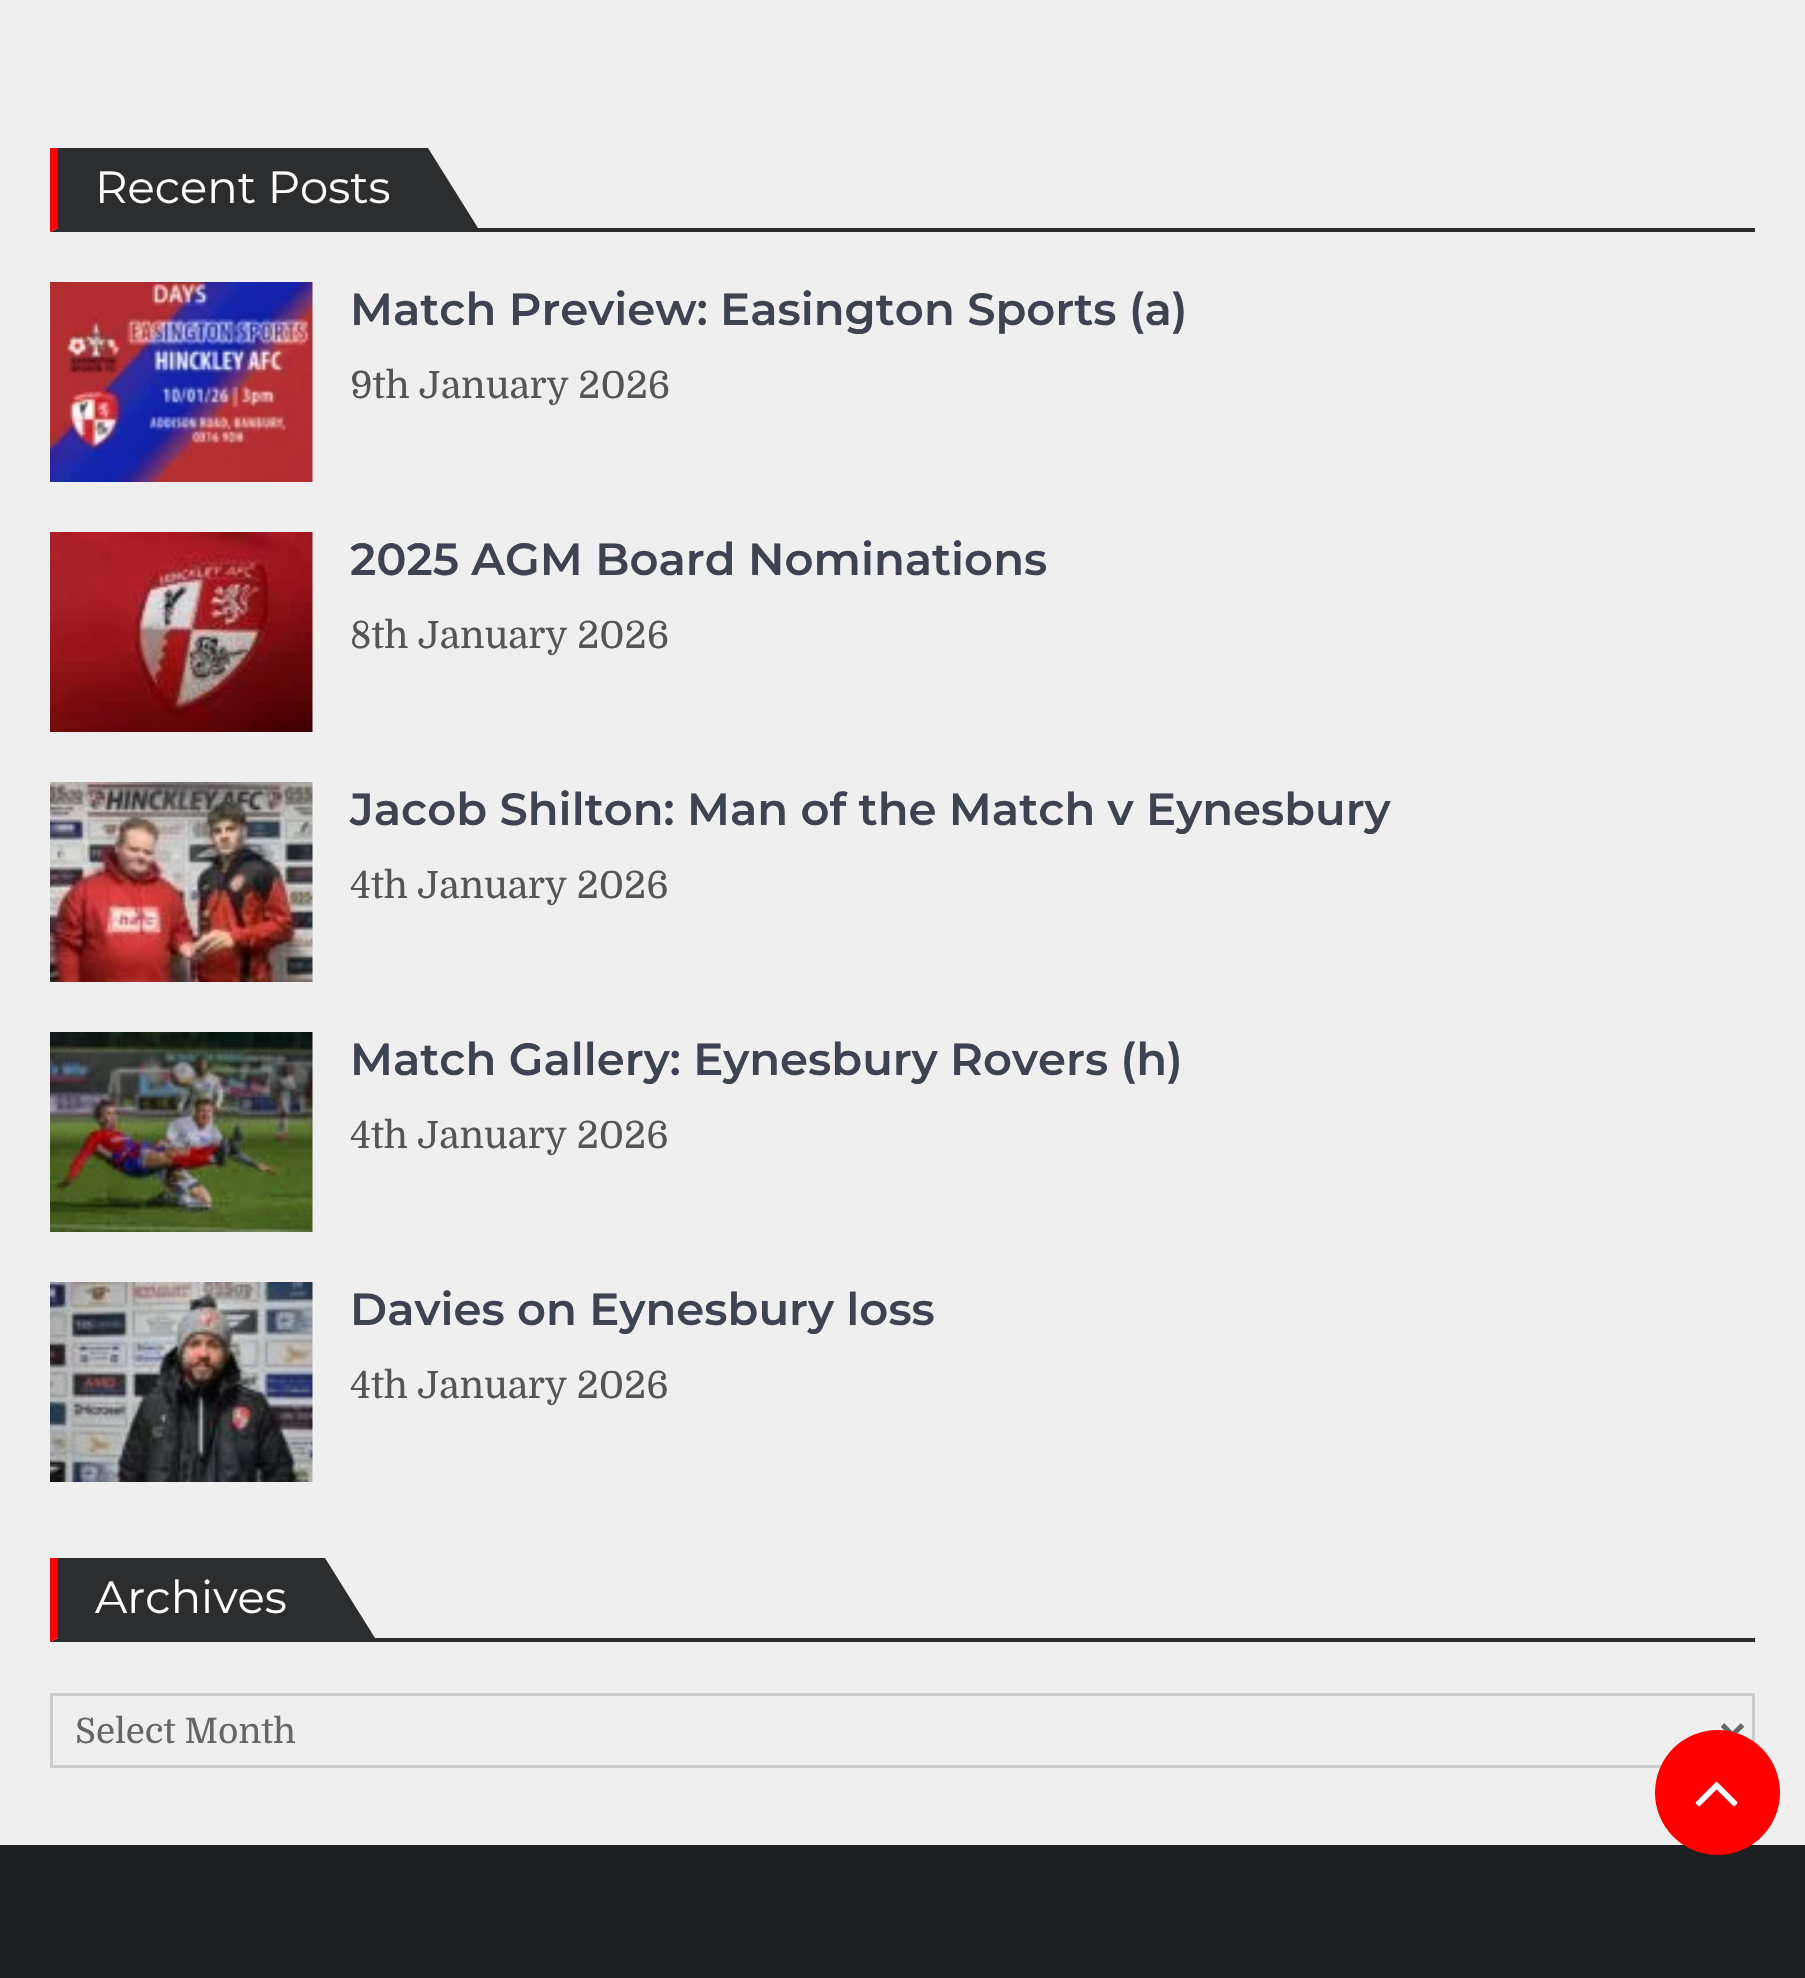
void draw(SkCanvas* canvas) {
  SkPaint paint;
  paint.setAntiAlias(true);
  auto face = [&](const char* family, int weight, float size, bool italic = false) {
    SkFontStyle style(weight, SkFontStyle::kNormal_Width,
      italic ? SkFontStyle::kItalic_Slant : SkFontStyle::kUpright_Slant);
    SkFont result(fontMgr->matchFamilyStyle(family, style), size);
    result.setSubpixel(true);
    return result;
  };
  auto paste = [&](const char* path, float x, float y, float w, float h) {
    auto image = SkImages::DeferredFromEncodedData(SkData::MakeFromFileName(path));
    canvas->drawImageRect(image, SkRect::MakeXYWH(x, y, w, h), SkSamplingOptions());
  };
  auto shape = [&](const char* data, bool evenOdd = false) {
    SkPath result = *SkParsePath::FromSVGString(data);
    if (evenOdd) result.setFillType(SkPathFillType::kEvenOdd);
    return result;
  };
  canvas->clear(0xffefefef);
  paint.setColor(0xff2b2d2e);
  canvas->drawPath(shape("M1755 232H50L58 228H1755Z"), paint);
  paint.setColor(0xffff0000);
  canvas->drawPath(shape("M50 232V148H58V228Z"), paint);
  paint.setColor(0xff2b2d2e);
  canvas->drawRect(SkRect::MakeXYWH(58, 148, 370, 80), paint);
  canvas->drawPath(shape("M478 228H428V148Z"), paint);
  paste("img/1.png", 50, 282, 263, 200);
  paste("img/2.png", 50, 532, 263, 200);
  paste("img/3.png", 50, 782, 263, 200);
  paste("img/4.png", 50, 1032, 263, 200);
  paste("img/5.png", 50, 1282, 263, 200);
  canvas->drawPath(shape("M1755 1642H50L58 1638H1755Z"), paint);
  paint.setColor(0xffff0000);
  canvas->drawPath(shape("M50 1642V1558H58V1638Z"), paint);
  paint.setColor(0xff2b2d2e);
  canvas->drawRect(SkRect::MakeXYWH(58, 1558, 267, 80), paint);
  canvas->drawPath(shape("M375 1638H325V1558Z"), paint);
  paint.setStroke(true);
  paint.setStrokeWidth(3);
  paint.setColor(0xffcccccc);
  canvas->drawRect(SkRect::MakeXYWH(51.5f, 1694.5f, 1702, 72), paint);
  paint.setStrokeWidth(5);
  paint.setColor(0xff666666);
  canvas->drawPath(shape("M1722.5 1725L1732.5 1735L1742.5 1725"), paint);
  paint.setStroke(false);
  paint.setColor(0xff1d2022);
  canvas->drawRect(SkRect::MakeXYWH(0, 1845, 1805, 133), paint);
  paint.setColor(0xffff0000);
  canvas->drawCircle(1717.5f, 1792.5f, 62.5f, paint);
  paste("img/6.png", 1695, 1781, 43, 26);
  auto f0 = face("Montserrat", 400, 45);
  paint.setColor(0xffffffff);
  canvas->drawString("Recent Posts", 95, 203, f0, paint);
  auto f1 = face("Montserrat", 600, 45);
  paint.setColor(0xff3d4351);
  canvas->drawString("Match Preview: Easington Sports (a)", 350, 325, f1, paint);
  auto f2 = face("Domine", 400, 37.5f);
  paint.setColor(0xff555555);
  canvas->drawString("9th January 2026", 350, 398, f2, paint);
  paint.setColor(0xff3d4351);
  canvas->drawString("2025 AGM Board Nominations", 350, 575, f1, paint);
  paint.setColor(0xff555555);
  canvas->drawString("8th January 2026", 350, 648, f2, paint);
  paint.setColor(0xff3d4351);
  canvas->drawString("Jacob Shilton: Man of the Match v Eynesbury", 350, 825, f1, paint);
  paint.setColor(0xff555555);
  canvas->drawString("4th January 2026", 350, 898, f2, paint);
  paint.setColor(0xff3d4351);
  canvas->drawString("Match Gallery: Eynesbury Rovers (h)", 350, 1075, f1, paint);
  paint.setColor(0xff555555);
  canvas->drawString("4th January 2026", 350, 1148, f2, paint);
  paint.setColor(0xff3d4351);
  canvas->drawString("Davies on Eynesbury loss", 350, 1325, f1, paint);
  paint.setColor(0xff555555);
  canvas->drawString("4th January 2026", 350, 1398, f2, paint);
  paint.setColor(0xffffffff);
  canvas->drawString("Archives", 95, 1613, f0, paint);
  auto f3 = face("Domine", 400, 35);
  paint.setColor(0xff666666);
  canvas->drawString("Select Month", 75, 1743, f3, paint);
}
